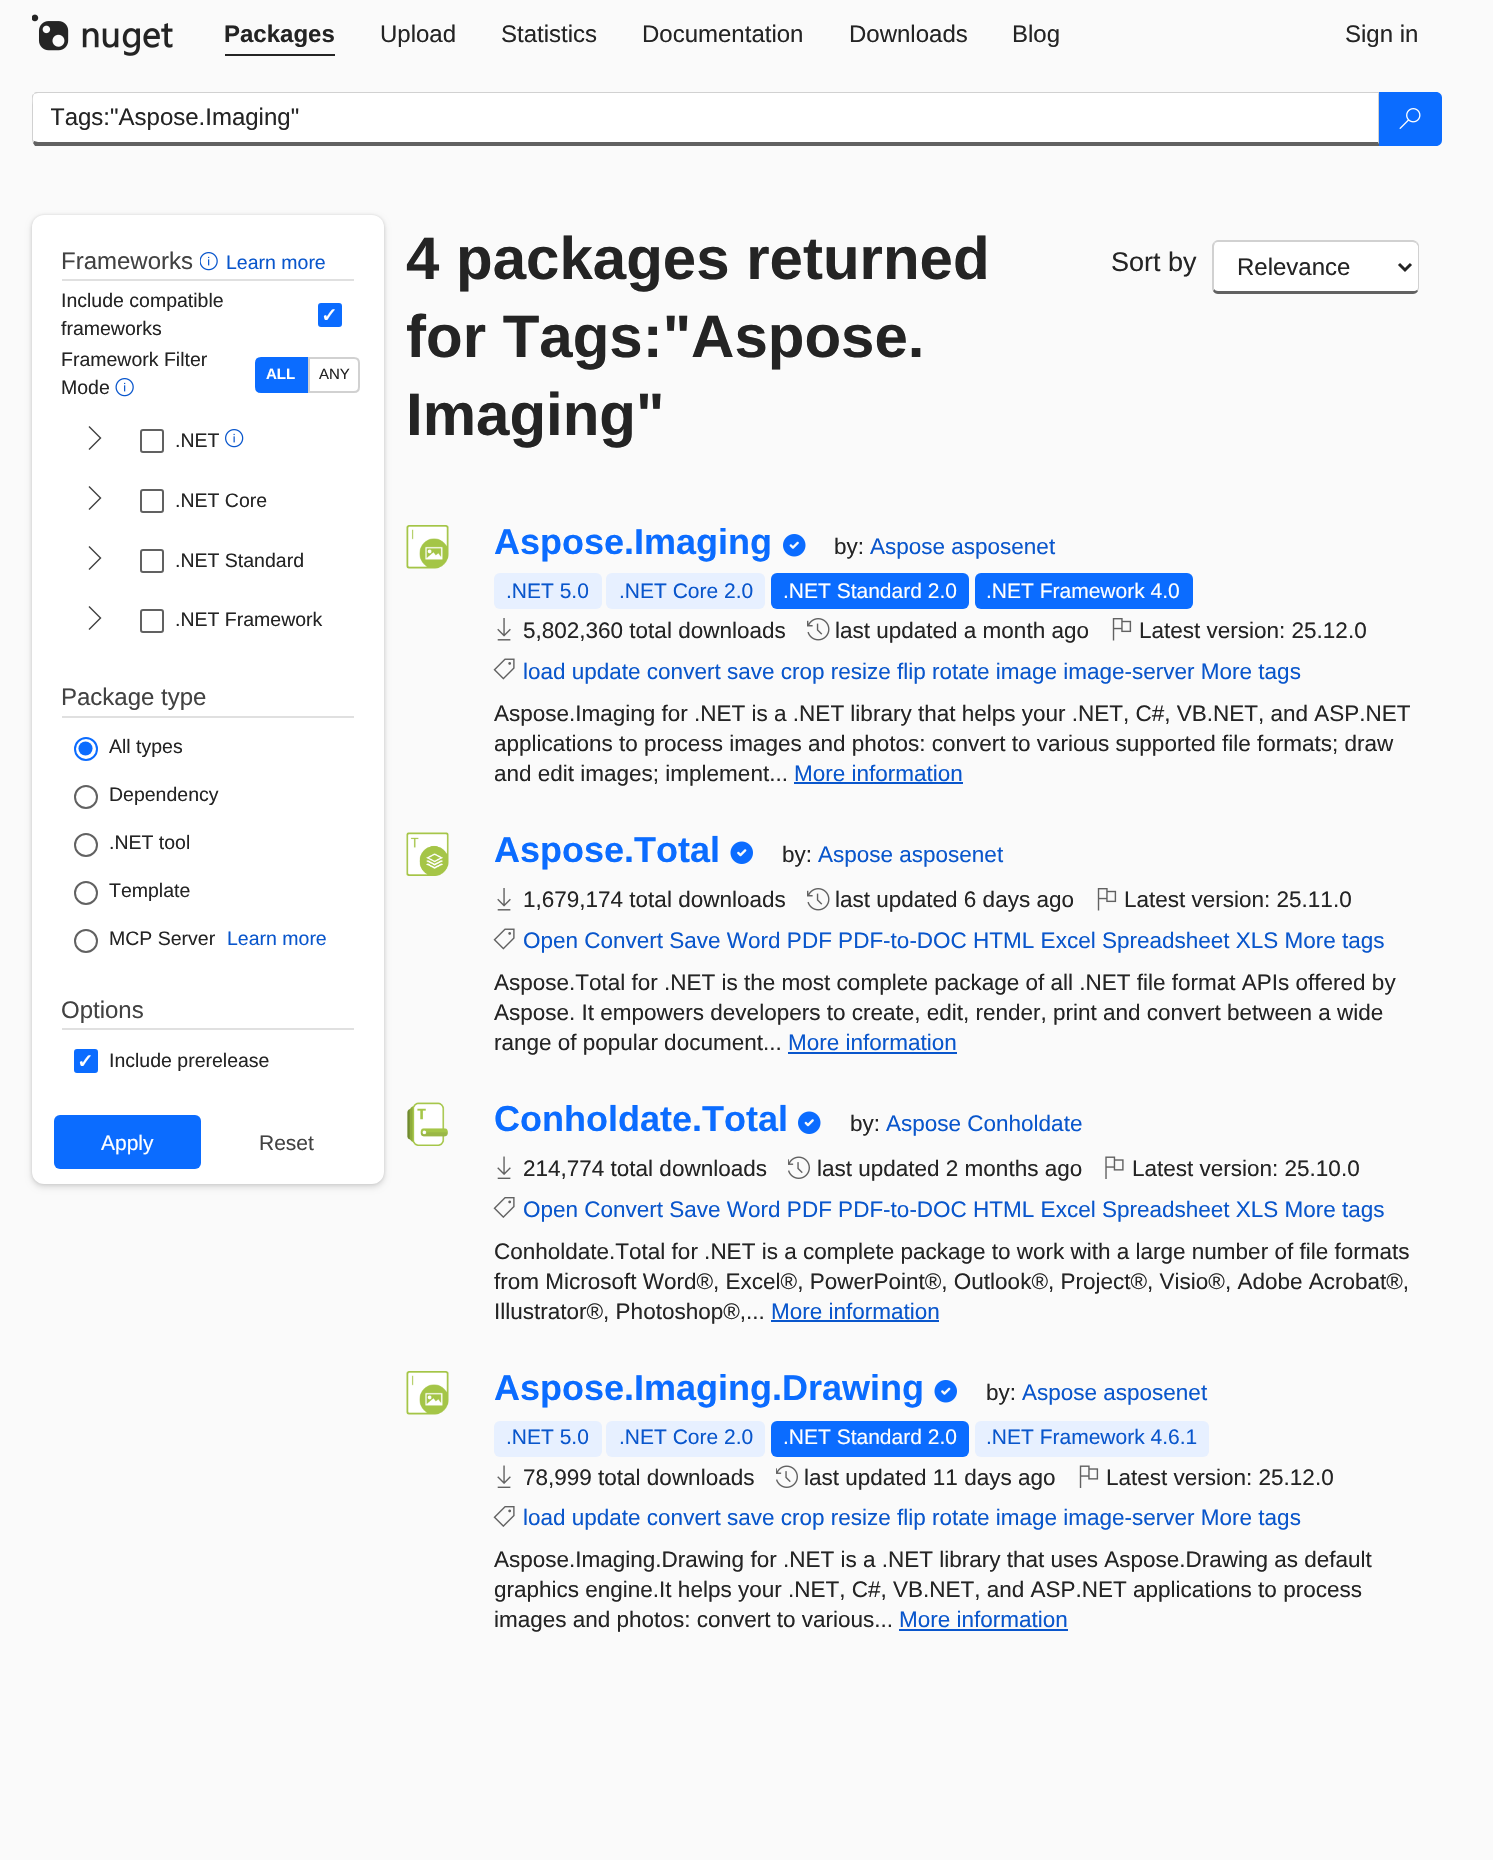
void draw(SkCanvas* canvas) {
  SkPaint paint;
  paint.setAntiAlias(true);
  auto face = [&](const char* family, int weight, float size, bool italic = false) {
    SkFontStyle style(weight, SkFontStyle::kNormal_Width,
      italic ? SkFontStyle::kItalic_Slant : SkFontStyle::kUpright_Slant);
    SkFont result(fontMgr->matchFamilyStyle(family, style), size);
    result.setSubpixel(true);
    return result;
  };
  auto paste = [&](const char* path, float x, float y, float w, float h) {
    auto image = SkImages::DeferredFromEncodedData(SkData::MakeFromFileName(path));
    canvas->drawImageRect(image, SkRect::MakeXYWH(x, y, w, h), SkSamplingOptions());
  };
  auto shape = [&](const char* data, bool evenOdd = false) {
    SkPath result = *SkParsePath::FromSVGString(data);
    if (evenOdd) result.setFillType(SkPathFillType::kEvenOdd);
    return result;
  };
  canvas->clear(0xfffafafa);
  paste("img/1.png", 32, 14, 141, 42);
  paint.setColor(0xff242424);
  canvas->drawRect(SkRect::MakeXYWH(225, 54, 110, 2), paint);
  paint.setColor(0xffffffff);
  canvas->drawPath(shape("M38 93H1378V142H38C35 142 33 141 33 140V98C33 95 35 93 38 93Z"), paint);
  paint.setColor(0xffd1d1d1);
  canvas->drawPath(shape("M38 92C36 92 34 92 34 94C35 94 36 93 38 93H1378V94L1380 92Z"), paint);
  canvas->drawPath(shape("M1380 146V92L1378 94V142Z"), paint);
  paint.setColor(0xff616161);
  canvas->drawPath(shape("M1380 146H35L33 143L34 141L38 142H1378Z"), paint);
  paint.setColor(0xffd1d1d1);
  canvas->drawPath(shape("M34 94C32 94 32 96 32 98V140L33 143L34 141L33 140V105C33 103 32 97 34 94Z"), paint);
  paint.setColor(0xff0b6cff);
  canvas->drawPath(shape("M1379 92H1436C1439.5 92 1442 94.5 1442 98V140C1442 143.5 1439.5 146 1436 146H1379Z"), paint);
  paste("img/2.png", 1399, 108, 22, 21);
  paint.setColor(0x24000000);
  paint.setMaskFilter(SkMaskFilter::MakeBlur(kNormal_SkBlurStyle, 3));
  canvas->drawRoundRect(SkRect::MakeXYWH(32, 218, 352, 969), 12, 12, paint);
  paint.setMaskFilter(nullptr);
  paint.setColor(0x1f000000);
  paint.setMaskFilter(SkMaskFilter::MakeBlur(kNormal_SkBlurStyle, 1.5f));
  canvas->drawRoundRect(SkRect::MakeXYWH(32, 215, 352, 969), 12, 12, paint);
  paint.setMaskFilter(nullptr);
  paint.setColor(0xffffffff);
  canvas->drawRoundRect(SkRect::MakeXYWH(32, 215, 352, 969), 12, 12, paint);
  paint.setColor(0xffe0e0e0);
  canvas->drawRect(SkRect::MakeXYWH(62, 279, 292, 2), paint);
  paste("img/3.png", 200, 252, 18, 19);
  paint.setColor(0xff0b6cff);
  canvas->drawRoundRect(SkRect::MakeXYWH(319, 304, 22, 22), 2, 2, paint);
  paint.setStroke(true);
  paint.setStrokeWidth(2);
  canvas->drawRoundRect(SkRect::MakeXYWH(319, 304, 22, 22), 2, 2, paint);
  paste("img/4.png", 115, 378, 19, 19);
  paint.setStroke(false);
  canvas->drawPath(shape("M261 358H307V392H261C258 392 256 390 256 387V363C256 360 258 358 261 358Z"), paint);
  paint.setStroke(true);
  canvas->drawPath(shape("M261 358H307V392H261C258 392 256 390 256 387V363C256 360 258 358 261 358Z"), paint);
  paint.setColor(0xffd1d1d1);
  canvas->drawPath(shape("M309 358H354C357 358 359 360 359 363V387C359 390 357 392 354 392H309Z"), paint);
  paint.setStroke(false);
  paint.setColor(0xff424242);
  canvas->drawPath(shape("M88.5 449L99.5 438L88.5 427L89.5 426L101.5 438L89.5 450Z"), paint);
  paint.setStroke(true);
  paint.setColor(0xff616161);
  canvas->drawRoundRect(SkRect::MakeXYWH(141, 430, 22, 22), 2, 2, paint);
  paste("img/5.png", 225, 429, 19, 19);
  paint.setStroke(false);
  paint.setColor(0xff424242);
  canvas->drawPath(shape("M88.5 509L99.5 498L88.5 487L89.5 486L101.5 498L89.5 510Z"), paint);
  paint.setStroke(true);
  paint.setColor(0xff616161);
  canvas->drawRoundRect(SkRect::MakeXYWH(141, 490, 22, 22), 2, 2, paint);
  paint.setStroke(false);
  paint.setColor(0xff424242);
  canvas->drawPath(shape("M88.5 569L99.5 558L88.5 547L89.5 546L101.5 558L89.5 570Z"), paint);
  paint.setStroke(true);
  paint.setColor(0xff616161);
  canvas->drawRoundRect(SkRect::MakeXYWH(141, 550, 22, 22), 2, 2, paint);
  paint.setStroke(false);
  paint.setColor(0xff424242);
  canvas->drawPath(shape("M88.5 629L99.5 618L88.5 607L89.5 606L101.5 618L89.5 630Z"), paint);
  paint.setStroke(true);
  paint.setColor(0xff616161);
  canvas->drawRoundRect(SkRect::MakeXYWH(141, 610, 22, 22), 2, 2, paint);
  paint.setStroke(false);
  paint.setColor(0xffe0e0e0);
  canvas->drawRect(SkRect::MakeXYWH(62, 716, 292, 2), paint);
  paint.setStroke(true);
  paint.setStrokeWidth(14.1f);
  paint.setStrokeCap(SkPaint::kRound_Cap);
  paint.setColor(0xff0b6cff);
  paint.setPathEffect(SkDashPathEffect::Make({{0, 21}}, 0));
  canvas->drawPath(shape("M85.5 748.5H85.8"), paint);
  paint.setPathEffect(nullptr);
  paint.setStrokeWidth(2);
  paint.setStrokeCap(SkPaint::kButt_Cap);
  canvas->drawCircle(86, 749, 11, paint);
  paint.setColor(0xff616161);
  canvas->drawCircle(86, 797, 11, paint);
  canvas->drawCircle(86, 845, 11, paint);
  canvas->drawCircle(86, 893, 11, paint);
  canvas->drawCircle(86, 941, 11, paint);
  paint.setStroke(false);
  paint.setColor(0xffe0e0e0);
  canvas->drawRect(SkRect::MakeXYWH(62, 1028, 292, 2), paint);
  paint.setColor(0xff0b6cff);
  canvas->drawRoundRect(SkRect::MakeXYWH(75, 1050, 22, 22), 2, 2, paint);
  paint.setStroke(true);
  canvas->drawRoundRect(SkRect::MakeXYWH(75, 1050, 22, 22), 2, 2, paint);
  paint.setStroke(false);
  canvas->drawRoundRect(SkRect::MakeXYWH(54, 1115, 147, 54), 6, 6, paint);
  paint.setColor(0xffffffff);
  canvas->drawPath(shape("M1218 242H1413C1415 242 1418 244 1418 246V288C1418 290 1415 291 1413 291H1218C1216 291 1214 290 1214 288V246C1214 244 1216 242 1218 242Z"), paint);
  paint.setColor(0xffd1d1d1);
  canvas->drawPath(shape("M1218 240C1216 240 1215 241 1214 242L1215 243C1216 242 1217 242 1218 242H1413L1416 243L1417 242C1416 241 1414 240 1413 240Z"), paint);
  canvas->drawPath(shape("M1419 288V246C1419 244 1418 243 1417 242L1416 243L1418 246V288L1417 290L1418 291Z"), paint);
  paint.setColor(0xff616161);
  canvas->drawPath(shape("M1218 294H1413C1415 294 1417 293 1418 291L1417 290C1416 291 1414 291 1413 291H1218C1216 291 1215 290 1214 289L1213 291C1214 293 1216 294 1218 294Z"), paint);
  paint.setColor(0xffd1d1d1);
  canvas->drawPath(shape("M1212 246V288C1212 289 1212 290 1213 291L1214 289V246L1215 243L1214 242C1213 243 1212 244 1212 246Z"), paint);
  paint.setStroke(true);
  paint.setStrokeWidth(3);
  paint.setColor(0xff242424);
  canvas->drawPath(shape("M1399 264L1405 270L1411 264"), paint);
  paste("img/6.png", 406, 525, 43, 44);
  paste("img/7.png", 783, 534, 23, 23);
  paint.setStroke(false);
  paint.setColor(0xffe7f0ff);
  canvas->drawRoundRect(SkRect::MakeXYWH(494, 573, 108, 36), 6, 6, paint);
  canvas->drawRoundRect(SkRect::MakeXYWH(606, 573, 159, 36), 6, 6, paint);
  paint.setColor(0xff0b6cff);
  canvas->drawRoundRect(SkRect::MakeXYWH(771, 573, 198, 36), 6, 6, paint);
  canvas->drawRoundRect(SkRect::MakeXYWH(975, 573, 218, 36), 6, 6, paint);
  paste("img/8.png", 497, 618, 14, 23);
  paste("img/9.png", 807, 618, 23, 23);
  paste("img/10.png", 1112, 618, 20, 23);
  paste("img/11.png", 493, 658, 22, 22);
  paint.setColor(0xff0956cc);
  canvas->drawRect(SkRect::MakeXYWH(794, 782, 169, 2), paint);
  paste("img/12.png", 406, 832, 43, 44);
  paste("img/13.png", 730, 841, 23, 23);
  paste("img/8.png", 497, 888, 14, 23);
  paste("img/9.png", 807, 888, 23, 23);
  paste("img/10.png", 1097, 888, 20, 23);
  paste("img/11.png", 493, 928, 22, 22);
  canvas->drawRect(SkRect::MakeXYWH(788, 1052, 169, 2), paint);
  paste("img/14.png", 407, 1102, 41, 44);
  paste("img/15.png", 798, 1111, 23, 23);
  paste("img/16.png", 497, 1156, 14, 23);
  paste("img/17.png", 788, 1156, 22, 23);
  paste("img/18.png", 1105, 1156, 19, 23);
  paste("img/19.png", 493, 1197, 22, 21);
  canvas->drawRect(SkRect::MakeXYWH(771, 1320, 168, 2), paint);
  paste("img/6.png", 406, 1371, 43, 44);
  paste("img/20.png", 934, 1380, 23, 23);
  paint.setColor(0xffe7f0ff);
  canvas->drawRoundRect(SkRect::MakeXYWH(494, 1421, 108, 36), 6, 6, paint);
  canvas->drawRoundRect(SkRect::MakeXYWH(606, 1421, 159, 36), 6, 6, paint);
  paint.setColor(0xff0b6cff);
  canvas->drawRoundRect(SkRect::MakeXYWH(771, 1421, 198, 36), 6, 6, paint);
  paint.setColor(0xffe7f0ff);
  canvas->drawRoundRect(SkRect::MakeXYWH(975, 1421, 234, 36), 6, 6, paint);
  paste("img/16.png", 497, 1465, 14, 23);
  paste("img/17.png", 776, 1465, 22, 23);
  paste("img/21.png", 1079, 1465, 20, 23);
  paste("img/19.png", 493, 1506, 22, 21);
  paint.setColor(0xff0956cc);
  canvas->drawRect(SkRect::MakeXYWH(899, 1629, 169, 2), paint);
  auto f0 = face("Liberation Sans", 700, 24);
  paint.setColor(0xff242424);
  canvas->drawString("Packages", 224, 42, f0, paint);
  auto f1 = face("Liberation Sans", 400, 24);
  {
    const struct { const char* s; float x, y; } items[] = {
      {"Upload", 380, 42},
      {"Statistics", 501, 42},
      {"Documentation", 642, 42},
      {"Downloads", 849, 42},
      {"Blog", 1012, 42},
      {"Sign in", 1345, 42},
    };
    for (auto [s, x, y] : items) {
      canvas->drawString(s, x, y, f1, paint);
    }
  }
  canvas->save();
  canvas->clipRect(SkRect::MakeXYWH(51, 105, 1310, 27));
  canvas->drawString("Tags:\"Aspose.Imaging\"", 50, 125, f1, paint);
  canvas->restore();
  paint.setColor(0xff424242);
  canvas->drawString("Frameworks", 61, 269, f1, paint);
  auto f2 = face("Liberation Sans", 400, 19.5f);
  paint.setColor(0xff0956cc);
  canvas->drawString("Learn more", 226, 269, f2, paint);
  paint.setColor(0xff242424);
  canvas->drawString("Include compatible", 61, 307, f2, paint);
  canvas->drawString("frameworks", 61, 335, f2, paint);
  auto f3 = face("DejaVu Sans", 700, 19.5f);
  paint.setColor(0xffffffff);
  canvas->drawString("✓", 321, 322, f3, paint);
  paint.setColor(0xff242424);
  canvas->drawString("Framework Filter", 61, 366, f2, paint);
  canvas->drawString("Mode", 61, 394, f2, paint);
  auto f4 = face("Liberation Sans", 700, 15);
  paint.setColor(0xffffffff);
  canvas->drawString("ALL", 266, 379, f4, paint);
  auto f5 = face("Liberation Sans", 400, 15);
  paint.setColor(0xff242424);
  canvas->drawString("ANY", 319, 379, f5, paint);
  {
    const struct { const char* s; float x, y; } items[] = {
      {".NET", 175, 447},
      {".NET Core", 175, 507},
      {".NET Standard", 175, 567},
      {".NET Framework", 175, 626},
    };
    for (auto [s, x, y] : items) {
      canvas->drawString(s, x, y, f2, paint);
    }
  }
  paint.setColor(0xff424242);
  canvas->drawString("Package type", 61, 705, f1, paint);
  paint.setColor(0xff242424);
  {
    const struct { const char* s; float x, y; } items[] = {
      {"All types", 109, 753},
      {"Dependency", 109, 801},
      {".NET tool", 109, 849},
      {"Template", 109, 897},
      {"MCP Server", 109, 945},
    };
    for (auto [s, x, y] : items) {
      canvas->drawString(s, x, y, f2, paint);
    }
  }
  paint.setColor(0xff0956cc);
  canvas->drawString("Learn more", 227, 945, f2, paint);
  paint.setColor(0xff424242);
  canvas->drawString("Options", 61, 1018, f1, paint);
  paint.setColor(0xffffffff);
  canvas->drawString("✓", 77, 1068, f3, paint);
  paint.setColor(0xff242424);
  canvas->drawString("Include prerelease", 109, 1067, f2, paint);
  auto f6 = face("Liberation Sans", 400, 21);
  paint.setColor(0xffffffff);
  canvas->drawString("Apply", 101, 1150, f6, paint);
  paint.setColor(0xff424242);
  canvas->drawString("Reset", 259, 1150, f6, paint);
  auto f7 = face("Liberation Sans", 700, 60);
  paint.setColor(0xff242424);
  {
    const struct { const char* s; float x, y; } items[] = {
      {"4 packages returned", 406, 279},
      {"for Tags:\"Aspose.", 406, 357},
      {"Imaging\"", 406, 435},
    };
    for (auto [s, x, y] : items) {
      canvas->drawString(s, x, y, f7, paint);
    }
  }
  auto f8 = face("Liberation Sans", 400, 27);
  canvas->drawString("Sort by", 1111, 271, f8, paint);
  canvas->drawString("Relevance", 1237, 275, f1, paint);
  auto f9 = face("Liberation Sans", 700, 36);
  paint.setColor(0xff0b6cff);
  canvas->drawString("Aspose.Imaging", 494, 554, f9, paint);
  auto f10 = face("Liberation Sans", 400, 22.5f);
  paint.setColor(0xff242424);
  canvas->drawString("by:", 834, 554, f10, paint);
  paint.setColor(0xff0956cc);
  canvas->drawString("Aspose asposenet", 870, 554, f10, paint);
  canvas->drawString(".NET 5.0", 506, 598, f6, paint);
  canvas->drawString(".NET Core 2.0", 619, 598, f6, paint);
  paint.setColor(0xffffffff);
  canvas->drawString(".NET Standard 2.0", 783, 598, f6, paint);
  canvas->drawString(".NET Framework 4.0", 986, 598, f6, paint);
  paint.setColor(0xff242424);
  {
    const struct { const char* s; float x, y; } items[] = {
      {"5,802,360 total downloads", 523, 638},
      {"last updated a month ago", 835, 638},
      {"Latest version: 25.12.0", 1139, 638},
    };
    for (auto [s, x, y] : items) {
      canvas->drawString(s, x, y, f10, paint);
    }
  }
  paint.setColor(0xff0956cc);
  canvas->drawString("load update convert save crop resize flip rotate image image-server More tags", 523, 679, f10, paint);
  paint.setColor(0xff242424);
  {
    const struct { const char* s; float x, y; } items[] = {
      {"Aspose.Imaging for .NET is a .NET library that helps your .NET, C#, VB.NET, and ASP.NET", 494, 721},
      {"applications to process images and photos: convert to various supported file formats; draw", 494, 751},
      {"and edit images; implement...", 494, 781},
    };
    for (auto [s, x, y] : items) {
      canvas->drawString(s, x, y, f10, paint);
    }
  }
  paint.setColor(0xff0956cc);
  canvas->drawString("More information", 794, 781, f10, paint);
  paint.setColor(0xff0b6cff);
  canvas->drawString("Aspose.Total", 494, 862, f9, paint);
  paint.setColor(0xff242424);
  canvas->drawString("by:", 782, 862, f10, paint);
  paint.setColor(0xff0956cc);
  canvas->drawString("Aspose asposenet", 818, 862, f10, paint);
  paint.setColor(0xff242424);
  {
    const struct { const char* s; float x, y; } items[] = {
      {"1,679,174 total downloads", 523, 907},
      {"last updated 6 days ago", 835, 907},
      {"Latest version: 25.11.0", 1124, 907},
    };
    for (auto [s, x, y] : items) {
      canvas->drawString(s, x, y, f10, paint);
    }
  }
  paint.setColor(0xff0956cc);
  canvas->drawString("Open Convert Save Word PDF PDF-to-DOC HTML Excel Spreadsheet XLS More tags", 523, 948, f10, paint);
  paint.setColor(0xff242424);
  {
    const struct { const char* s; float x, y; } items[] = {
      {"Aspose.Total for .NET is the most complete package of all .NET file format APIs offered by", 494, 990},
      {"Aspose. It empowers developers to create, edit, render, print and convert between a wide", 494, 1020},
      {"range of popular document...", 494, 1050},
    };
    for (auto [s, x, y] : items) {
      canvas->drawString(s, x, y, f10, paint);
    }
  }
  paint.setColor(0xff0956cc);
  canvas->drawString("More information", 788, 1050, f10, paint);
  paint.setColor(0xff0b6cff);
  canvas->drawString("Conholdate.Total", 494, 1131, f9, paint);
  paint.setColor(0xff242424);
  canvas->drawString("by:", 850, 1131, f10, paint);
  paint.setColor(0xff0956cc);
  canvas->drawString("Aspose Conholdate", 886, 1131, f10, paint);
  paint.setColor(0xff242424);
  {
    const struct { const char* s; float x, y; } items[] = {
      {"214,774 total downloads", 523, 1176},
      {"last updated 2 months ago", 817, 1176},
      {"Latest version: 25.10.0", 1132, 1176},
    };
    for (auto [s, x, y] : items) {
      canvas->drawString(s, x, y, f10, paint);
    }
  }
  paint.setColor(0xff0956cc);
  canvas->drawString("Open Convert Save Word PDF PDF-to-DOC HTML Excel Spreadsheet XLS More tags", 523, 1217, f10, paint);
  paint.setColor(0xff242424);
  {
    const struct { const char* s; float x, y; } items[] = {
      {"Conholdate.Total for .NET is a complete package to work with a large number of file formats", 494, 1259},
      {"from Microsoft Word®, Excel®, PowerPoint®, Outlook®, Project®, Visio®, Adobe Acrobat®,", 494, 1289},
      {"Illustrator®, Photoshop®,...", 494, 1319},
    };
    for (auto [s, x, y] : items) {
      canvas->drawString(s, x, y, f10, paint);
    }
  }
  paint.setColor(0xff0956cc);
  canvas->drawString("More information", 771, 1319, f10, paint);
  paint.setColor(0xff0b6cff);
  canvas->drawString("Aspose.Imaging.Drawing", 494, 1400, f9, paint);
  paint.setColor(0xff242424);
  canvas->drawString("by:", 986, 1400, f10, paint);
  paint.setColor(0xff0956cc);
  canvas->drawString("Aspose asposenet", 1022, 1400, f10, paint);
  canvas->drawString(".NET 5.0", 506, 1444, f6, paint);
  canvas->drawString(".NET Core 2.0", 619, 1444, f6, paint);
  paint.setColor(0xffffffff);
  canvas->drawString(".NET Standard 2.0", 783, 1444, f6, paint);
  paint.setColor(0xff0956cc);
  canvas->drawString(".NET Framework 4.6.1", 986, 1444, f6, paint);
  paint.setColor(0xff242424);
  {
    const struct { const char* s; float x, y; } items[] = {
      {"78,999 total downloads", 523, 1485},
      {"last updated 11 days ago", 804, 1485},
      {"Latest version: 25.12.0", 1106, 1485},
    };
    for (auto [s, x, y] : items) {
      canvas->drawString(s, x, y, f10, paint);
    }
  }
  paint.setColor(0xff0956cc);
  canvas->drawString("load update convert save crop resize flip rotate image image-server More tags", 523, 1525, f10, paint);
  paint.setColor(0xff242424);
  {
    const struct { const char* s; float x, y; } items[] = {
      {"Aspose.Imaging.Drawing for .NET is a .NET library that uses Aspose.Drawing as default", 494, 1567},
      {"graphics engine.It helps your .NET, C#, VB.NET, and ASP.NET applications to process", 494, 1597},
      {"images and photos: convert to various...", 494, 1627},
    };
    for (auto [s, x, y] : items) {
      canvas->drawString(s, x, y, f10, paint);
    }
  }
  paint.setColor(0xff0956cc);
  canvas->drawString("More information", 899, 1627, f10, paint);
}
